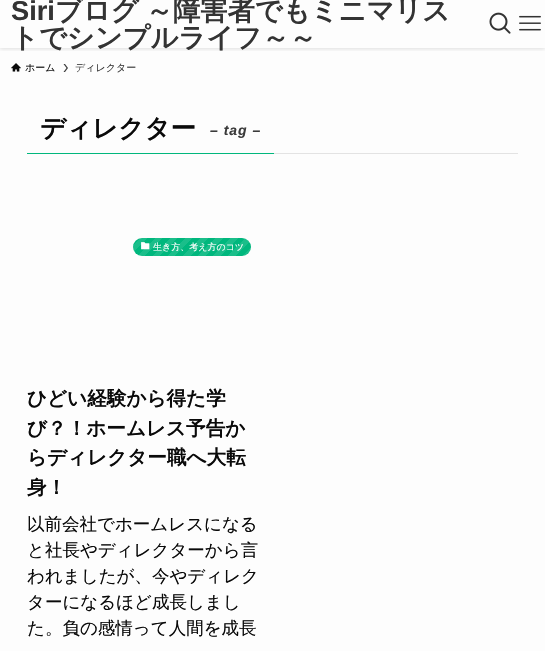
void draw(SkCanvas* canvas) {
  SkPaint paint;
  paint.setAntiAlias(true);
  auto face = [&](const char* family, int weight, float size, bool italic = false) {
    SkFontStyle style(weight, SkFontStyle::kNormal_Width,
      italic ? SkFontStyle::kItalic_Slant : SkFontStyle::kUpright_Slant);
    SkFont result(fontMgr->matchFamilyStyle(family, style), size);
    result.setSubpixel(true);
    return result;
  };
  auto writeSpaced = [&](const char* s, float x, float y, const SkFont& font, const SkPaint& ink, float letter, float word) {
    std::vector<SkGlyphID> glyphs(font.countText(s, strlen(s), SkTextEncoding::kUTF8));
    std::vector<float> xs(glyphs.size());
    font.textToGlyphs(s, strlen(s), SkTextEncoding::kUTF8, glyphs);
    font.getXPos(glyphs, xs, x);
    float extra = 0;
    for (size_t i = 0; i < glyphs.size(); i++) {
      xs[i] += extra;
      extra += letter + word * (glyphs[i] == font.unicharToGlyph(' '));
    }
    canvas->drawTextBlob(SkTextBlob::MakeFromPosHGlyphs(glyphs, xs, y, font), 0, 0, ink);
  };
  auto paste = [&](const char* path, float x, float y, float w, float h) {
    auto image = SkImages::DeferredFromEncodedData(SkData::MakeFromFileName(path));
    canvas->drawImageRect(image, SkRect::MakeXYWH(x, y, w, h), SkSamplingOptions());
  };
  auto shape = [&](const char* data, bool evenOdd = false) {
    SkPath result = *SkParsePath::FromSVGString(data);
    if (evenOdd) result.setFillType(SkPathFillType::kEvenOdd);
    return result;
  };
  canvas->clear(0xfffdfdfd);
  canvas->save();
  canvas->clipRect(SkRect::MakeXYWH(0, 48, 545, 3));
  paint.setColor(0x1f000000);
  paint.setMaskFilter(SkMaskFilter::MakeBlur(kNormal_SkBlurStyle, 2));
  canvas->drawRect(SkRect::MakeXYWH(0, 1, 545, 48), paint);
  paint.setMaskFilter(nullptr);
  canvas->restore();
  paste("img/1.png", 489, 12, 22, 22);
  paste("img/2.png", 519, 15, 22, 16);
  paste("img/3.png", 11, 63, 10, 9);
  paint.setColor(0xff3b3b3b);
  canvas->drawPath(shape("M65 64H63.5L66.5 68L63.5 72H65L68 68Z"), paint);
  paint.setColor(0xffe3e3e3);
  canvas->drawRect(SkRect::MakeXYWH(274, 153, 244, 1), paint);
  paint.setColor(0xff00b77d);
  canvas->drawRect(SkRect::MakeXYWH(27, 153, 247, 1), paint);
  canvas->drawRoundRect(SkRect::MakeXYWH(133, 238, 118, 18), 9, 9, paint);
  {
    const SkColor colors[] = {0x1affffff, 0x1affffff, 0x00ffffff, 0x00ffffff, 0x1affffff, 0x1affffff, 0x00ffffff, 0x00ffffff, 0x1affffff, 0x1affffff, 0x00ffffff, 0x00ffffff, 0x1affffff, 0x1affffff, 0x00ffffff, 0x00ffffff, 0x1affffff, 0x1affffff, 0x00ffffff, 0x00ffffff, 0x1affffff, 0x1affffff, 0x00ffffff, 0x00ffffff, 0x1affffff, 0x1affffff, 0x00ffffff, 0x00ffffff, 0x1affffff, 0x1affffff, 0x00ffffff, 0x00ffffff, 0x1affffff, 0x1affffff, 0x00ffffff, 0x00000000};
    const float stops[] = {0, 0.06f, 0.06f, 0.11f, 0.11f, 0.17f, 0.17f, 0.22f, 0.22f, 0.28f, 0.28f, 0.33f, 0.33f, 0.39f, 0.39f, 0.44f, 0.44f, 0.5f, 0.5f, 0.56f, 0.56f, 0.61f, 0.61f, 0.67f, 0.67f, 0.72f, 0.72f, 0.78f, 0.78f, 0.83f, 0.83f, 0.89f, 0.89f, 0.94f, 0.94f, 1};
    const SkPoint ends[] = {{226, 281}, {157, 213}};
    paint.setShader(SkGradientShader::MakeLinear(ends, colors, stops, 36, SkTileMode::kClamp));
    paint.setAlpha(255);
  }
  canvas->drawRoundRect(SkRect::MakeXYWH(133, 238, 118, 18), 9, 9, paint);
  paste("img/4.png", 141, 242, 9, 8);
  auto f0 = face("Liberation Sans", 700, 27.25f);
  paint.setShader(nullptr);
  paint.setColor(0xff333333);
  canvas->drawString("Siri", 11, 20, f0, paint);
  auto f1 = face("WenQuanYi Zen Hei", 700, 27.25f);
  writeSpaced("ブログ ～障害者でもミニマリス", 55, 20, f1, paint, 0, -1);
  canvas->drawString("トでシンプルライフ～～", 11, 47, f1, paint);
  auto f2 = face("WenQuanYi Zen Hei", 500, 10);
  paint.setColor(0xff0a0a0a);
  canvas->drawString("ホーム", 25, 71, f2, paint);
  paint.setColor(0xff3b3b3b);
  canvas->drawString("ディレクター", 75, 71, f2, paint);
  auto f3 = face("WenQuanYi Zen Hei", 700, 25.5f);
  paint.setColor(0xff0a0a0a);
  canvas->drawString("ディレクター", 40, 137, f3, paint);
  auto f4 = face("Liberation Sans", 700, 14, true);
  paint.setColor(0xff3b3b3b);
  writeSpaced("– tag –", 210, 135, f4, paint, 1, 0);
  auto f5 = face("WenQuanYi Zen Hei", 500, 9);
  paint.setColor(0xffffffff);
  canvas->drawString("生き方、考え方のコツ", 153, 250, f5, paint);
  auto f6 = face("WenQuanYi Zen Hei", 700, 19.6f);
  paint.setColor(0xff0a0a0a);
  {
    const struct { const char* s; float x, y; } items[] = {
      {"ひどい経験から得た学", 27, 405},
      {"び？！ホームレス予告か", 27, 435},
      {"らディレクター職へ大転", 27, 464},
      {"身！", 27, 494},
    };
    for (auto [s, x, y] : items) {
      canvas->drawString(s, x, y, f6, paint);
    }
  }
  auto f7 = face("WenQuanYi Zen Hei", 500, 17.5f);
  {
    const struct { const char* s; float x, y; } items[] = {
      {"以前会社でホームレスになる", 27, 530},
      {"と社長やディレクターから言", 27, 556},
      {"われましたが、今やディレク", 27, 582},
      {"ターになるほど成長しまし", 27, 608},
      {"た。負の感情って人間を成長", 27, 634},
    };
    for (auto [s, x, y] : items) {
      canvas->drawString(s, x, y, f7, paint);
    }
  }
}
